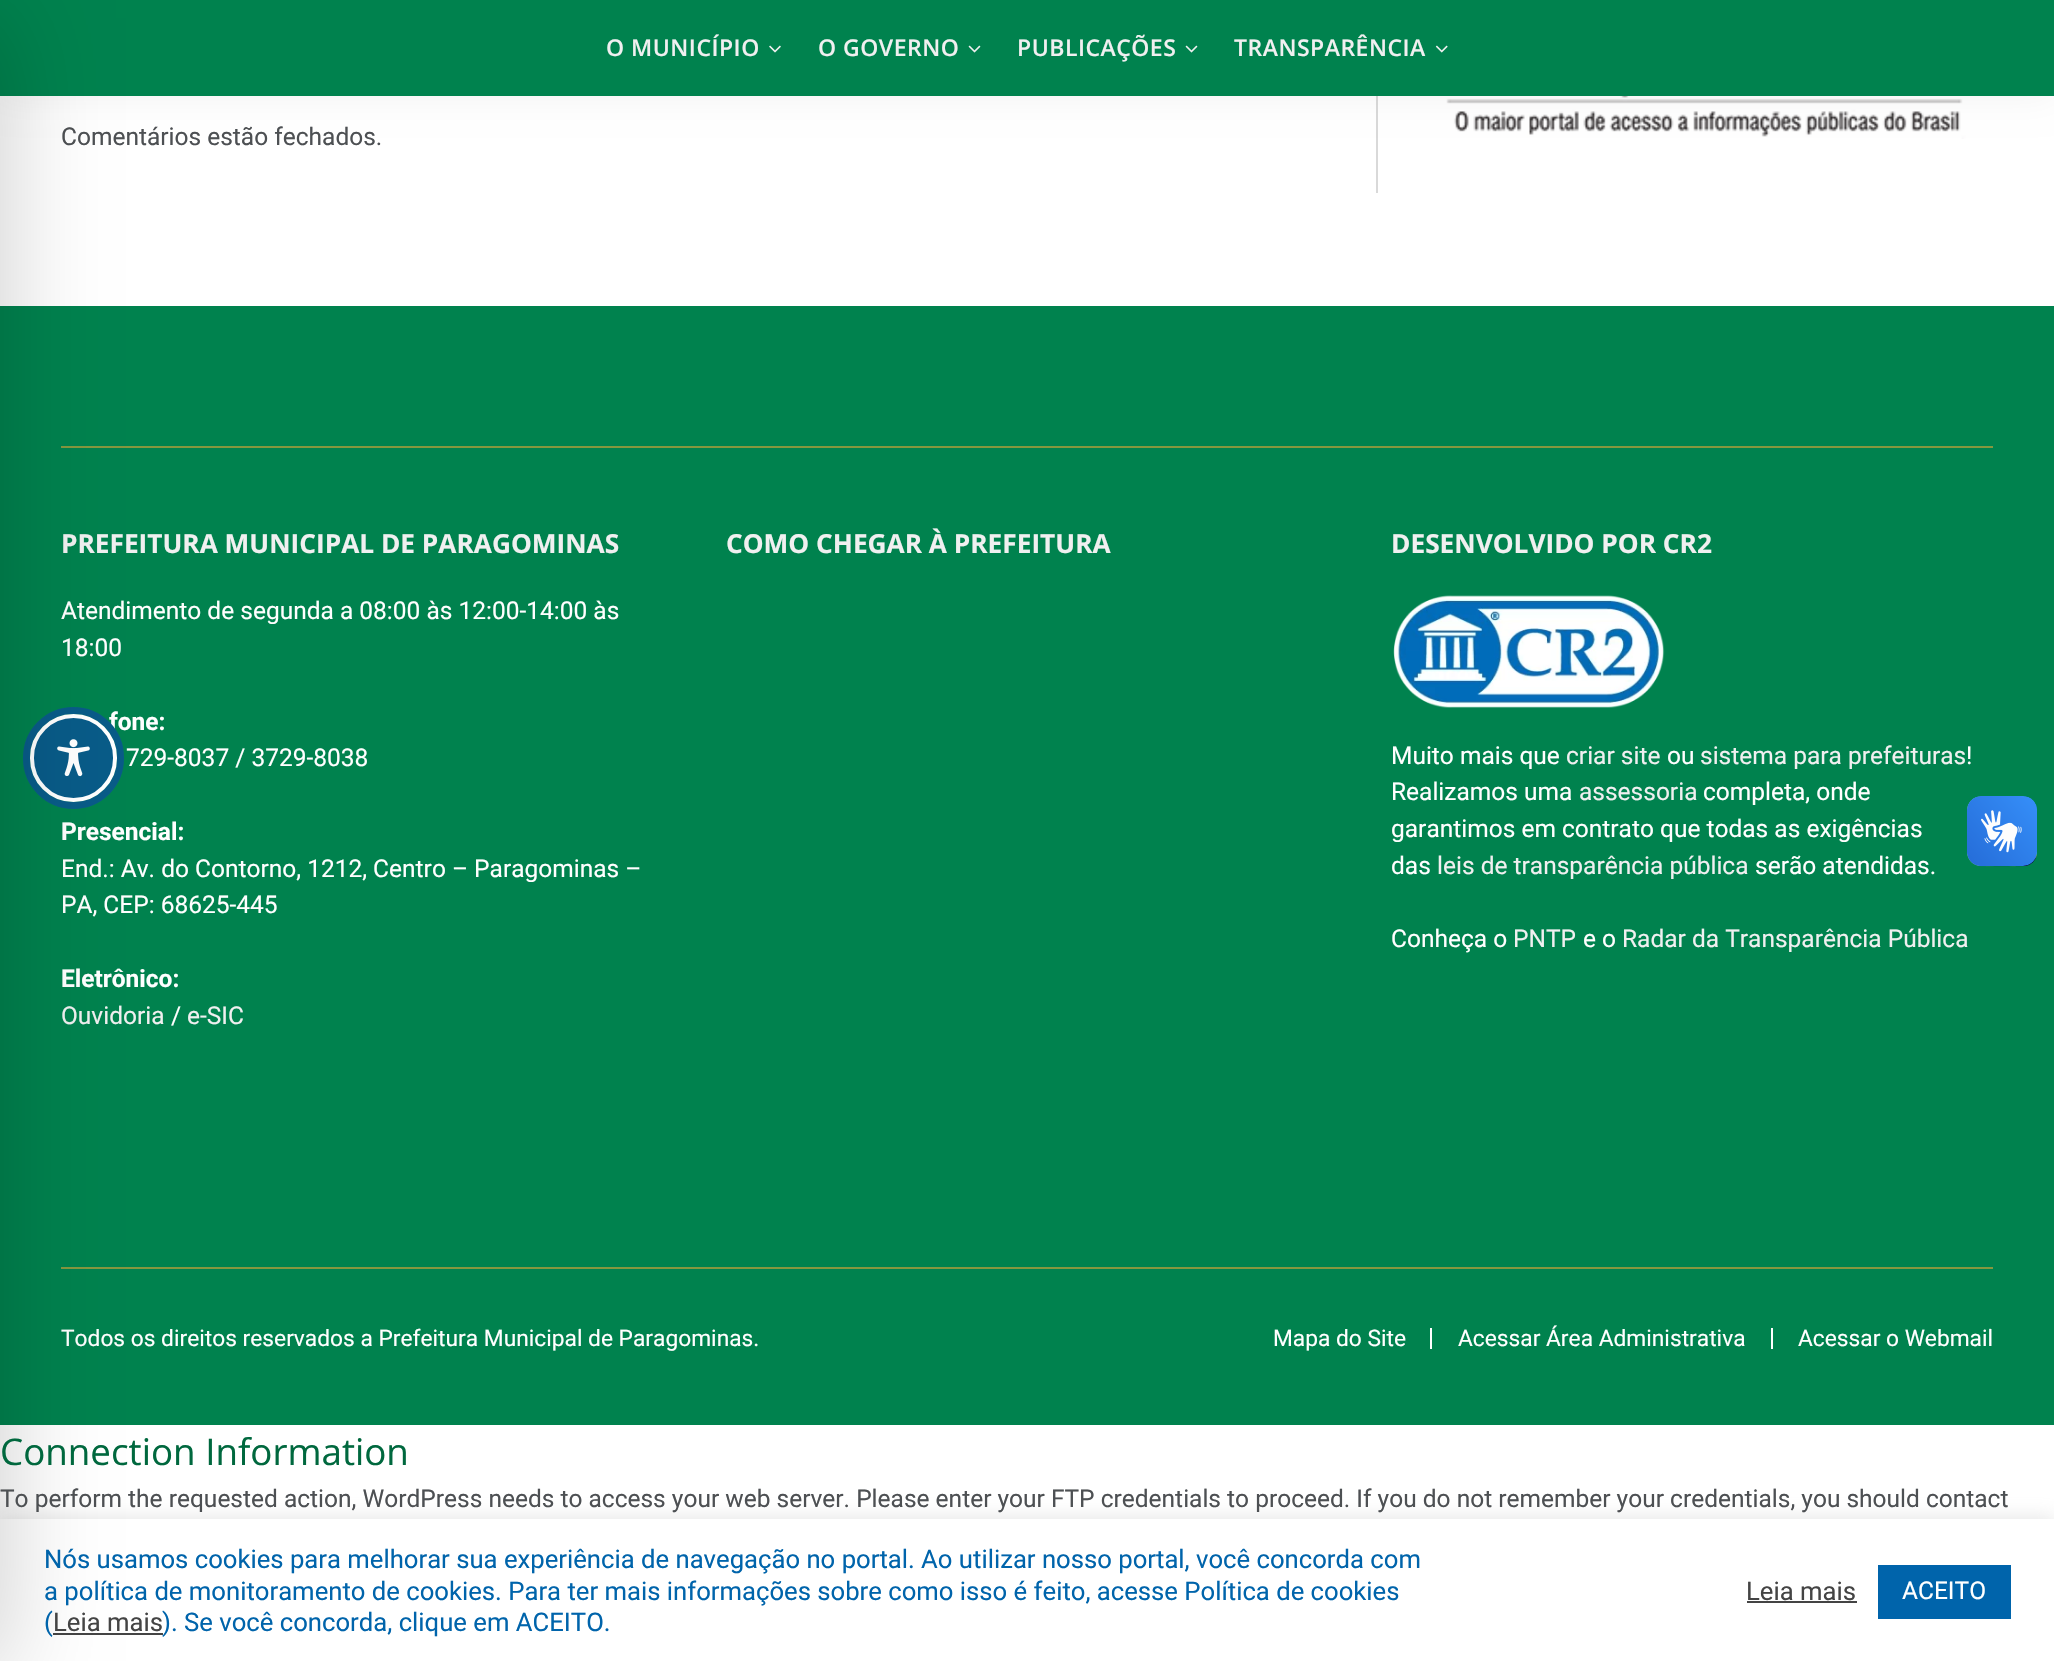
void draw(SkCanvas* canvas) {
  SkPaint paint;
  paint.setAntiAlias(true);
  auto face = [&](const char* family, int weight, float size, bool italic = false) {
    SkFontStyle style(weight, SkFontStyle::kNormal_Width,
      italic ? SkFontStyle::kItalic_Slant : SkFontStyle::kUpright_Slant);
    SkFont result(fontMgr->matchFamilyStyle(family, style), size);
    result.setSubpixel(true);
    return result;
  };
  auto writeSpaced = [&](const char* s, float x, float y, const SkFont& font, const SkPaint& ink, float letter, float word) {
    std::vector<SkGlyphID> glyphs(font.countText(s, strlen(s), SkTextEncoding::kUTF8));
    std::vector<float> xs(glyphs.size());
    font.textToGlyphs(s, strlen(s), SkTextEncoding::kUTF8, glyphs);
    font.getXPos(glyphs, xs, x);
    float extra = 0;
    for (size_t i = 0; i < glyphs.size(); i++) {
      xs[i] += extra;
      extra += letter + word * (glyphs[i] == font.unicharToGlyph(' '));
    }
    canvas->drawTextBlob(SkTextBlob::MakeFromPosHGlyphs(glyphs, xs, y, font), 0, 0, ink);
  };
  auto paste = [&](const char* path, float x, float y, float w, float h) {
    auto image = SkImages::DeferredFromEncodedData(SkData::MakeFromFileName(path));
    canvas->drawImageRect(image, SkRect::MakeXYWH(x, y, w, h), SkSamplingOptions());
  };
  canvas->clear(0xffffffff);
  paint.setColor(0xffd9d9d9);
  canvas->drawRect(SkRect::MakeXYWH(1376, 96, 2, 97), paint);
  paste("img/4.png", 1446, 96, 520, 43);
  paint.setColor(0x0d000000);
  paint.setMaskFilter(SkMaskFilter::MakeBlur(kNormal_SkBlurStyle, 17.5f));
  canvas->drawRect(SkRect::MakeXYWH(0, 0, 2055, 96), paint);
  paint.setMaskFilter(nullptr);
  paint.setColor(0xff00824e);
  canvas->drawRect(SkRect::MakeXYWH(0, 0, 2054, 96), paint);
  paste("img/1.png", 769, 45, 12, 8);
  paste("img/2.png", 968, 45, 13, 8);
  paste("img/2.png", 1185, 45, 13, 8);
  paste("img/3.png", 1435, 45, 13, 8);
  canvas->drawRect(SkRect::MakeXYWH(0, 306, 2054, 1119), paint);
  paint.setColor(0xff85973f);
  canvas->drawRect(SkRect::MakeXYWH(61, 446, 1932, 2), paint);
  paste("img/5.png", 1393, 595, 272, 113);
  {
    const struct { float x, y, w, h; SkColor color; } items[] = {
      {61, 1267, 1932, 2, 0xff85973f},
      {1430, 1328, 2, 21, 0xffffffff},
      {1771, 1328, 2, 21, 0xffffffff},
    };
    for (auto [x, y, w, h, color] : items) {
      paint.setColor(color);
      canvas->drawRect(SkRect::MakeXYWH(x, y, w, h), paint);
    }
  }
  paste("img/7.png", 1967, 796, 70, 71);
  paste("img/8.png", 1967, 796, 70, 70);
  paint.setColor(0x4dacabab);
  paint.setMaskFilter(SkMaskFilter::MakeBlur(kNormal_SkBlurStyle, 9));
  canvas->drawRect(SkRect::MakeXYWH(0, 1517, 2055, 144), paint);
  paint.setMaskFilter(nullptr);
  {
    const struct { float x, y, w, h; SkColor color; } items[] = {
      {0, 1519, 2054, 142, 0xffffffff},
      {53, 1633, 110, 2, 0xff444444},
      {1747, 1601, 110, 2, 0xff444444},
      {1878, 1565, 133, 54, 0xff0064ab},
    };
    for (auto [x, y, w, h, color] : items) {
      paint.setColor(color);
      canvas->drawRect(SkRect::MakeXYWH(x, y, w, h), paint);
    }
  }
  auto f0 = face("Open Sans", 600, 23);
  paint.setColor(0xfff0f0f0);
  {
    const struct { const char* s; float x, y; } items[] = {
      {"O MUNICÍPIO", 606, 56},
      {"O GOVERNO", 818, 56},
      {"PUBLICAÇÕES", 1017, 56},
      {"TRANSPARÊNCIA", 1234, 56},
    };
    for (auto [s, x, y] : items) {
      writeSpaced(s, x, y, f0, paint, 0.5f, 0);
    }
  }
  auto f1 = face("Roboto", 400, 24.5f);
  paint.setColor(0xff4d5053);
  canvas->drawString("Comentários estão fechados.", 61, 145, f1, paint);
  auto f2 = face("Open Sans", 700, 26.25f);
  paint.setColor(0xfff0f0f0);
  canvas->drawString("PREFEITURA MUNICIPAL DE PARAGOMINAS", 61, 553, f2, paint);
  paint.setColor(0xffffffff);
  canvas->drawString("Atendimento de segunda a 08:00 às 12:00-14:00 às", 61, 619, f1, paint);
  canvas->drawString("18:00", 61, 656, f1, paint);
  auto f3 = face("Roboto", 700, 24.5f);
  canvas->drawString("fone:", 109, 730, f3, paint);
  canvas->drawString("729-8037 / 3729-8038", 126, 766, f1, paint);
  canvas->drawString("Presencial:", 61, 840, f3, paint);
  canvas->drawString("End.: Av. do Contorno, 1212, Centro – Paragominas –", 61, 877, f1, paint);
  canvas->drawString("PA, CEP: 68625-445", 61, 913, f1, paint);
  canvas->drawString("Eletrônico:", 61, 987, f3, paint);
  paint.setColor(0xfff0f0f0);
  canvas->drawString("Ouvidoria", 61, 1024, f1, paint);
  paint.setColor(0xffffffff);
  canvas->drawString("/", 171, 1024, f1, paint);
  paint.setColor(0xfff0f0f0);
  canvas->drawString("e-SIC", 187, 1024, f1, paint);
  canvas->drawString("COMO CHEGAR À PREFEITURA", 726, 553, f2, paint);
  canvas->drawString("DESENVOLVIDO POR CR2", 1391, 553, f2, paint);
  paint.setColor(0xffffffff);
  canvas->drawString("Muito mais que", 1391, 764, f1, paint);
  paint.setColor(0xfff0f0f0);
  canvas->drawString("criar site", 1566, 764, f1, paint);
  paint.setColor(0xffffffff);
  canvas->drawString("ou", 1667, 764, f1, paint);
  paint.setColor(0xfff0f0f0);
  canvas->drawString("sistema para prefeituras", 1700, 764, f1, paint);
  paint.setColor(0xffffffff);
  canvas->drawString("!", 1966, 764, f1, paint);
  canvas->drawString("Realizamos uma", 1391, 800, f1, paint);
  paint.setColor(0xfff0f0f0);
  canvas->drawString("assessoria", 1579, 800, f1, paint);
  paint.setColor(0xffffffff);
  {
    const struct { const char* s; float x, y; } items[] = {
      {"completa, onde", 1703, 800},
      {"garantimos em contrato que todas as exigências", 1391, 837},
      {"das", 1391, 874},
    };
    for (auto [s, x, y] : items) {
      canvas->drawString(s, x, y, f1, paint);
    }
  }
  paint.setColor(0xfff0f0f0);
  canvas->drawString("leis de transparência pública", 1437, 874, f1, paint);
  paint.setColor(0xffffffff);
  canvas->drawString("serão atendidas.", 1755, 874, f1, paint);
  canvas->drawString("Conheça o", 1391, 947, f1, paint);
  paint.setColor(0xfff0f0f0);
  canvas->drawString("PNTP", 1513, 947, f1, paint);
  paint.setColor(0xffffffff);
  canvas->drawString("e o", 1583, 947, f1, paint);
  paint.setColor(0xfff0f0f0);
  canvas->drawString("Radar da Transparência Pública", 1622, 947, f1, paint);
  auto f4 = face("Roboto", 400, 22.75f);
  paint.setColor(0xffffffff);
  {
    const struct { const char* s; float x, y; } items[] = {
      {"Todos os direitos reservados a Prefeitura Municipal de Paragominas.", 61, 1346},
      {"Mapa do Site", 1273, 1346},
      {"Acessar Área Administrativa", 1458, 1346},
      {"Acessar o Webmail", 1798, 1346},
    };
    for (auto [s, x, y] : items) {
      canvas->drawString(s, x, y, f4, paint);
    }
  }
  paint.setStroke(true);
  paint.setStrokeWidth(7);
  paint.setColor(0xff085b88);
  canvas->drawRoundRect(SkRect::MakeXYWH(26.5f, 710.5f, 94, 95), 47, 47, paint);
  paint.setStroke(false);
  canvas->drawRoundRect(SkRect::MakeXYWH(32, 716, 83, 84), 41.5f, 41.5f, paint);
  paint.setStroke(true);
  paint.setStrokeWidth(4);
  paint.setColor(0xffffffff);
  canvas->drawRoundRect(SkRect::MakeXYWH(32, 716, 83, 84), 41.5f, 41.5f, paint);
  paste("img/6.png", 57, 739, 33, 38);
  paint.setStroke(false);
  paint.setColor(0x33000000);
  paint.setMaskFilter(SkMaskFilter::MakeBlur(kNormal_SkBlurStyle, 52.5f));
  canvas->drawRect(SkRect::MakeXYWH(-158, 18, 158, 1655), paint);
  paint.setMaskFilter(nullptr);
  auto f5 = face("Open Sans", 400, 36.75f);
  paint.setColor(0xff00683e);
  canvas->drawString("Connection Information", 0, 1465, f5, paint);
  paint.setColor(0xff4d5053);
  canvas->drawString("To perform the requested action, WordPress needs to access your web server. Please enter your FTP credentials to proceed. If you do not remember your credentials, you should contact", 0, 1507, f1, paint);
  auto f6 = face("Roboto", 400, 25.67f);
  paint.setColor(0xff0064ab);
  {
    const struct { const char* s; float x, y; } items[] = {
      {"Nós usamos cookies para melhorar sua experiência de navegação no portal. Ao utilizar nosso portal, você concorda com", 44, 1568},
      {"a política de monitoramento de cookies. Para ter mais informações sobre como isso é feito, acesse Política de cookies", 44, 1600},
      {"(", 44, 1631},
    };
    for (auto [s, x, y] : items) {
      canvas->drawString(s, x, y, f6, paint);
    }
  }
  paint.setColor(0xff444444);
  canvas->drawString("Leia mais", 53, 1631, f6, paint);
  paint.setColor(0xff0064ab);
  canvas->drawString("). Se você concorda, clique em ACEITO.", 162, 1631, f6, paint);
  paint.setColor(0xff444444);
  canvas->drawString("Leia mais", 1746, 1600, f6, paint);
  paint.setColor(0xffffffff);
  canvas->drawString("ACEITO", 1902, 1599, f1, paint);
}
